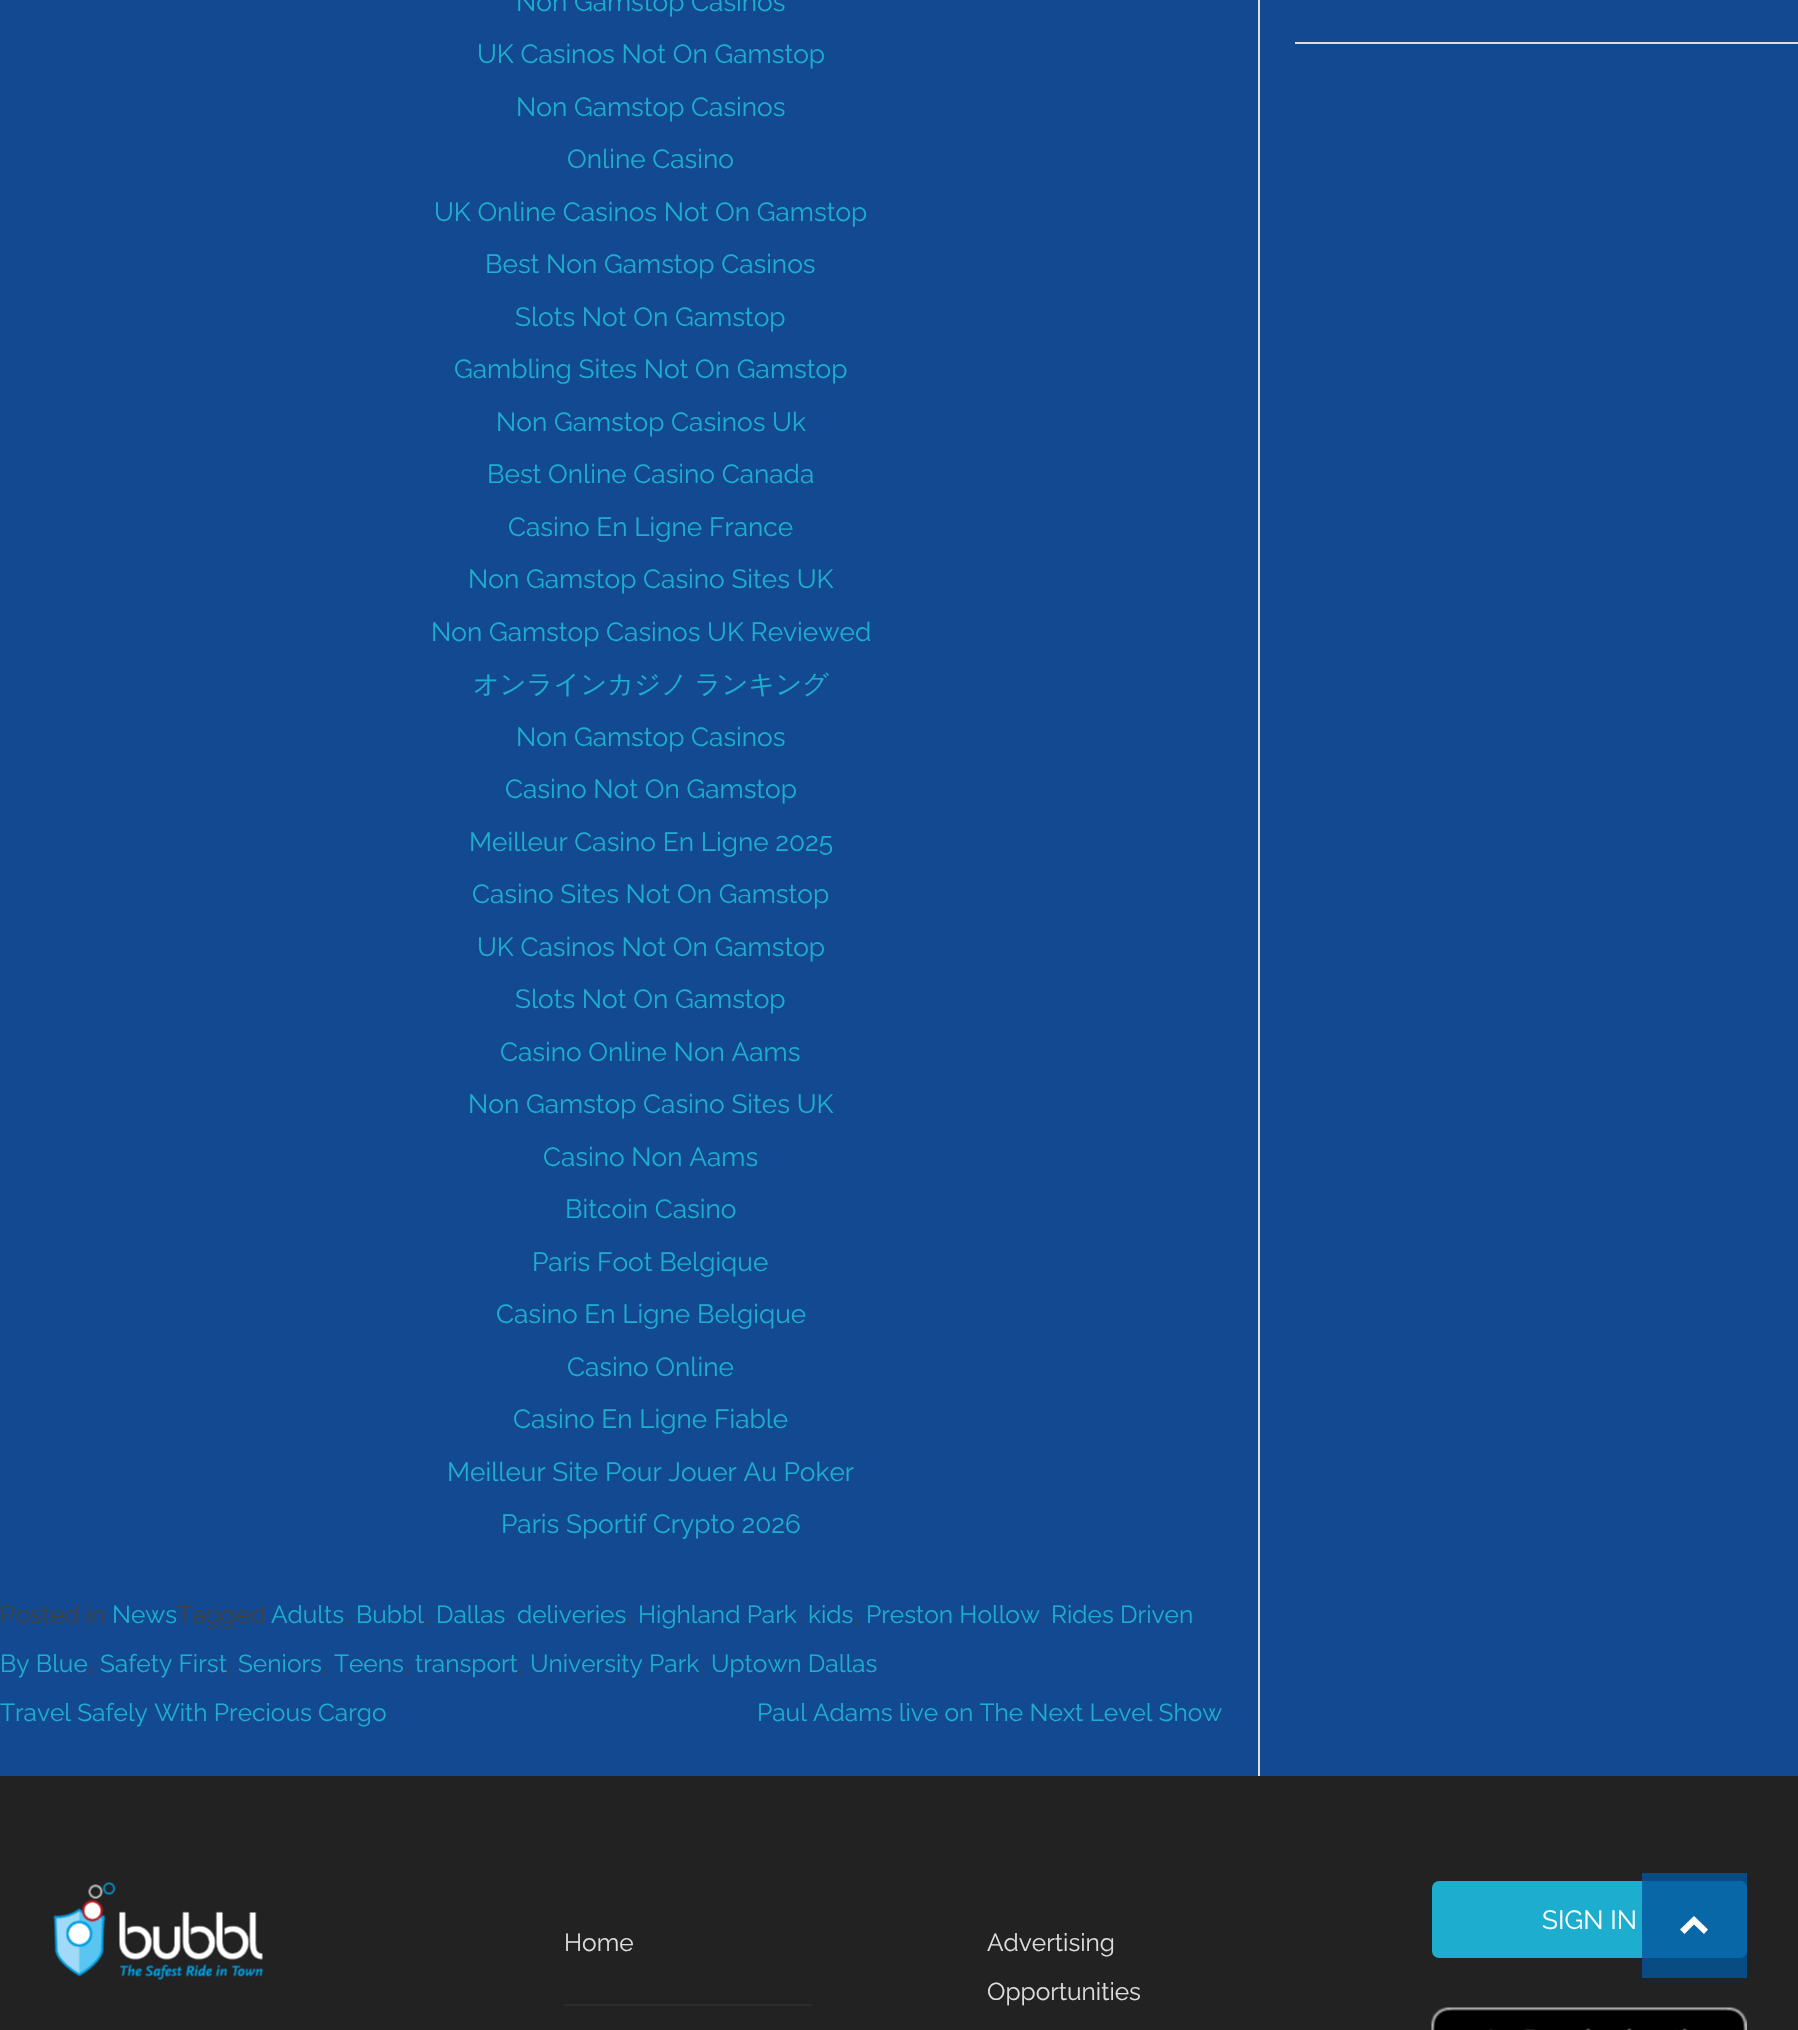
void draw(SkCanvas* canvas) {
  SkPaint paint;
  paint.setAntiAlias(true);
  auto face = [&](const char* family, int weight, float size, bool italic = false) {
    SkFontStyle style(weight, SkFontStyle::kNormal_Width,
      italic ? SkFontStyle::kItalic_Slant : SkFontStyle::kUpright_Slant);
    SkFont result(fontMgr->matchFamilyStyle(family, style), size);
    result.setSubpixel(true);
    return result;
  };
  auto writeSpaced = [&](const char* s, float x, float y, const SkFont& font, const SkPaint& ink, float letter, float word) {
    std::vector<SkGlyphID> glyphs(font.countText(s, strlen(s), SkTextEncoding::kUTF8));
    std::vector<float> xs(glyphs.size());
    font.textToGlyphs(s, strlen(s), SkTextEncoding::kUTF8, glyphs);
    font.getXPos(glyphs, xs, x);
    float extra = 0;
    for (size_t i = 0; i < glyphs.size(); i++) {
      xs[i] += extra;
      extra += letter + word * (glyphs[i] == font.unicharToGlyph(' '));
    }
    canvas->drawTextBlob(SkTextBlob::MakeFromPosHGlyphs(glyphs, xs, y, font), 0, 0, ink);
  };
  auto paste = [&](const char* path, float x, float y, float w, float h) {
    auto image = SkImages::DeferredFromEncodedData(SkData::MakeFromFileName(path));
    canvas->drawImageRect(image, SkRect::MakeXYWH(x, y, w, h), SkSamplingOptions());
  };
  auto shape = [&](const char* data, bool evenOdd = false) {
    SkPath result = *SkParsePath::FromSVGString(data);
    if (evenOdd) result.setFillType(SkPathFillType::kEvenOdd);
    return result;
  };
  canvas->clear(0xff124990);
  {
    const struct { float x, y, w, h; SkColor color; } items[] = {
      {1258, 0, 2, 1776, 0xffdddddd},
      {1295, 42, 503, 2, 0xffdddddd},
      {0, 1776, 1798, 254, 0xff222222},
    };
    for (auto [x, y, w, h, color] : items) {
      paint.setColor(color);
      canvas->drawRect(SkRect::MakeXYWH(x, y, w, h), paint);
    }
  }
  paste("img/1.png", 53, 1882, 210, 98);
  paint.setColor(0xff1cadcf);
  canvas->drawRoundRect(SkRect::MakeXYWH(1432, 1881, 315, 77), 7, 7, paint);
  paste("img/2.png", 1431, 2007, 316, 23);
  paint.setColor(0xff2d2c2c);
  canvas->drawRect(SkRect::MakeXYWH(564, 2004, 248, 2), paint);
  paint.setColor(0xcc03569c);
  canvas->drawRect(SkRect::MakeXYWH(1642, 1873, 105, 105), paint);
  paint.setColor(0xffffffff);
  canvas->drawPath(shape("M1694 1916L1708 1929.5L1704 1934L1694 1924.5L1684.5 1934L1680 1929.5Z"), paint);
  auto f0 = face("Raleway", 400, 26.25f);
  paint.setColor(0xff1cadcf);
  {
    const struct { const char* s; float x, y; } items[] = {
      {"Non Gamstop Casinos", 516, 11},
      {"UK Casinos Not On Gamstop", 477, 63},
      {"Non Gamstop Casinos", 516, 116},
      {"Online Casino", 567, 168},
      {"UK Online Casinos Not On Gamstop", 434, 221},
      {"Best Non Gamstop Casinos", 485, 273},
      {"Slots Not On Gamstop", 515, 326},
      {"Gambling Sites Not On Gamstop", 454, 378},
      {"Non Gamstop Casinos Uk", 496, 431},
      {"Best Online Casino Canada", 487, 483},
      {"Casino En Ligne France", 508, 536},
      {"Non Gamstop Casino Sites UK", 468, 588},
      {"Non Gamstop Casinos UK Reviewed", 431, 641},
    };
    for (auto [s, x, y] : items) {
      canvas->drawString(s, x, y, f0, paint);
    }
  }
  auto f1 = face("WenQuanYi Zen Hei", 500, 26.25f);
  writeSpaced("オンラインカジノ ランキング", 473, 693, f1, paint, 0, -1);
  {
    const struct { const char* s; float x, y; } items[] = {
      {"Non Gamstop Casinos", 516, 746},
      {"Casino Not On Gamstop", 505, 798},
      {"Meilleur Casino En Ligne 2025", 469, 851},
      {"Casino Sites Not On Gamstop", 472, 903},
      {"UK Casinos Not On Gamstop", 477, 956},
      {"Slots Not On Gamstop", 515, 1008},
      {"Casino Online Non Aams", 500, 1061},
      {"Non Gamstop Casino Sites UK", 468, 1113},
      {"Casino Non Aams", 543, 1166},
      {"Bitcoin Casino", 565, 1218},
      {"Paris Foot Belgique", 532, 1271},
      {"Casino En Ligne Belgique", 496, 1323},
      {"Casino Online", 567, 1376},
      {"Casino En Ligne Fiable", 513, 1428},
      {"Meilleur Site Pour Jouer Au Poker", 447, 1481},
      {"Paris Sportif Crypto 2026", 501, 1533},
    };
    for (auto [s, x, y] : items) {
      canvas->drawString(s, x, y, f0, paint);
    }
  }
  auto f2 = face("Raleway", 400, 24.5f);
  paint.setColor(0xff404040);
  canvas->drawString("Posted in", 0, 1623, f2, paint);
  paint.setColor(0xff1cadcf);
  canvas->drawString("News", 112, 1623, f2, paint);
  paint.setColor(0xff404040);
  canvas->drawString("Tagged", 177, 1623, f2, paint);
  paint.setColor(0xff1cadcf);
  canvas->drawString("Adults", 271, 1623, f2, paint);
  paint.setColor(0xff404040);
  canvas->drawString(",", 344, 1623, f2, paint);
  paint.setColor(0xff1cadcf);
  canvas->drawString("Bubbl", 356, 1623, f2, paint);
  paint.setColor(0xff404040);
  canvas->drawString(",", 424, 1623, f2, paint);
  paint.setColor(0xff1cadcf);
  canvas->drawString("Dallas", 436, 1623, f2, paint);
  paint.setColor(0xff404040);
  canvas->drawString(",", 505, 1623, f2, paint);
  paint.setColor(0xff1cadcf);
  canvas->drawString("deliveries", 517, 1623, f2, paint);
  paint.setColor(0xff404040);
  canvas->drawString(",", 626, 1623, f2, paint);
  paint.setColor(0xff1cadcf);
  canvas->drawString("Highland Park", 638, 1623, f2, paint);
  paint.setColor(0xff404040);
  canvas->drawString(",", 797, 1623, f2, paint);
  paint.setColor(0xff1cadcf);
  canvas->drawString("kids", 808, 1623, f2, paint);
  paint.setColor(0xff404040);
  canvas->drawString(",", 854, 1623, f2, paint);
  paint.setColor(0xff1cadcf);
  canvas->drawString("Preston Hollow", 866, 1623, f2, paint);
  paint.setColor(0xff404040);
  canvas->drawString(",", 1039, 1623, f2, paint);
  paint.setColor(0xff1cadcf);
  canvas->drawString("Rides Driven", 1051, 1623, f2, paint);
  canvas->drawString("By Blue", 0, 1672, f2, paint);
  paint.setColor(0xff404040);
  canvas->drawString(",", 88, 1672, f2, paint);
  paint.setColor(0xff1cadcf);
  canvas->drawString("Safety First", 100, 1672, f2, paint);
  paint.setColor(0xff404040);
  canvas->drawString(",", 226, 1672, f2, paint);
  paint.setColor(0xff1cadcf);
  canvas->drawString("Seniors", 238, 1672, f2, paint);
  paint.setColor(0xff404040);
  canvas->drawString(",", 322, 1672, f2, paint);
  paint.setColor(0xff1cadcf);
  canvas->drawString("Teens", 334, 1672, f2, paint);
  paint.setColor(0xff404040);
  canvas->drawString(",", 404, 1672, f2, paint);
  paint.setColor(0xff1cadcf);
  canvas->drawString("transport", 415, 1672, f2, paint);
  paint.setColor(0xff404040);
  canvas->drawString(",", 518, 1672, f2, paint);
  paint.setColor(0xff1cadcf);
  canvas->drawString("University Park", 530, 1672, f2, paint);
  paint.setColor(0xff404040);
  canvas->drawString(",", 699, 1672, f2, paint);
  paint.setColor(0xff1cadcf);
  {
    const struct { const char* s; float x, y; } items[] = {
      {"Uptown Dallas", 711, 1672},
      {"Travel Safely With Precious Cargo", 0, 1721},
      {"Paul Adams live on The Next Level Show", 757, 1721},
    };
    for (auto [s, x, y] : items) {
      canvas->drawString(s, x, y, f2, paint);
    }
  }
  paint.setColor(0xffffffff);
  canvas->drawString("SIGN IN", 1542, 1929, f0, paint);
  paint.setColor(0xffdddddd);
  {
    const struct { const char* s; float x, y; } items[] = {
      {"Home", 564, 1951},
      {"Advertising", 987, 1951},
      {"Opportunities", 987, 2000},
    };
    for (auto [s, x, y] : items) {
      canvas->drawString(s, x, y, f2, paint);
    }
  }
}
